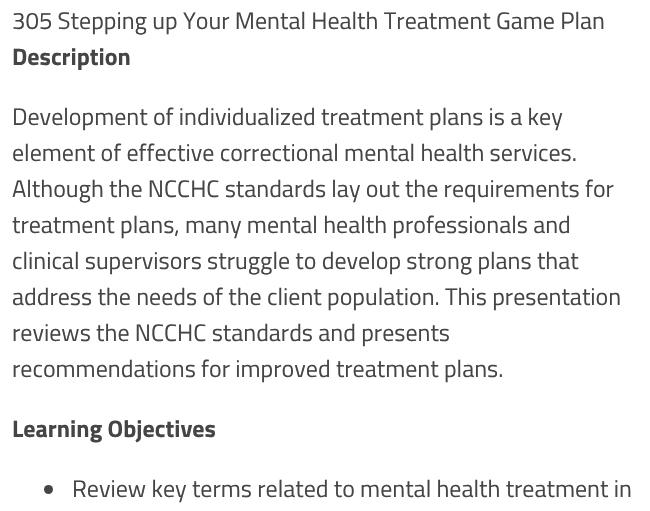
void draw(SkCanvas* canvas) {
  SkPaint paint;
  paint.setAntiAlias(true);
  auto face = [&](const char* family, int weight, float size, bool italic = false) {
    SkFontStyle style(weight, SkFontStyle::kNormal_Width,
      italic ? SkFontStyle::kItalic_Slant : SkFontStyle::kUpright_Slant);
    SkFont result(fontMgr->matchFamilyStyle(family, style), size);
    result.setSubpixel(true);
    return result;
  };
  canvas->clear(0xffffffff);
  paint.setColor(0xff454545);
  canvas->drawCircle(48.5f, 489.5f, 4.5f, paint);
  auto f0 = face("Titillium Web", 400, 24);
  canvas->drawString("305 Stepping up Your Mental Health Treatment Game Plan", 12, 29, f0, paint);
  auto f1 = face("Titillium Web", 700, 24);
  canvas->drawString("Description", 12, 65, f1, paint);
  {
    const struct { const char* s; float x, y; } items[] = {
      {"Development of individualized treatment plans is a key", 12, 125},
      {"element of effective correctional mental health services.", 12, 161},
      {"Although the NCCHC standards lay out the requirements for", 12, 197},
      {"treatment plans, many mental health professionals and", 12, 233},
      {"clinical supervisors struggle to develop strong plans that", 12, 269},
      {"address the needs of the client population. This presentation", 12, 305},
      {"reviews the NCCHC standards and presents", 12, 341},
      {"recommendations for improved treatment plans.", 12, 377},
    };
    for (auto [s, x, y] : items) {
      canvas->drawString(s, x, y, f0, paint);
    }
  }
  canvas->drawString("Learning Objectives", 12, 437, f1, paint);
  canvas->drawString("Review key terms related to mental health treatment in", 72, 497, f0, paint);
}
